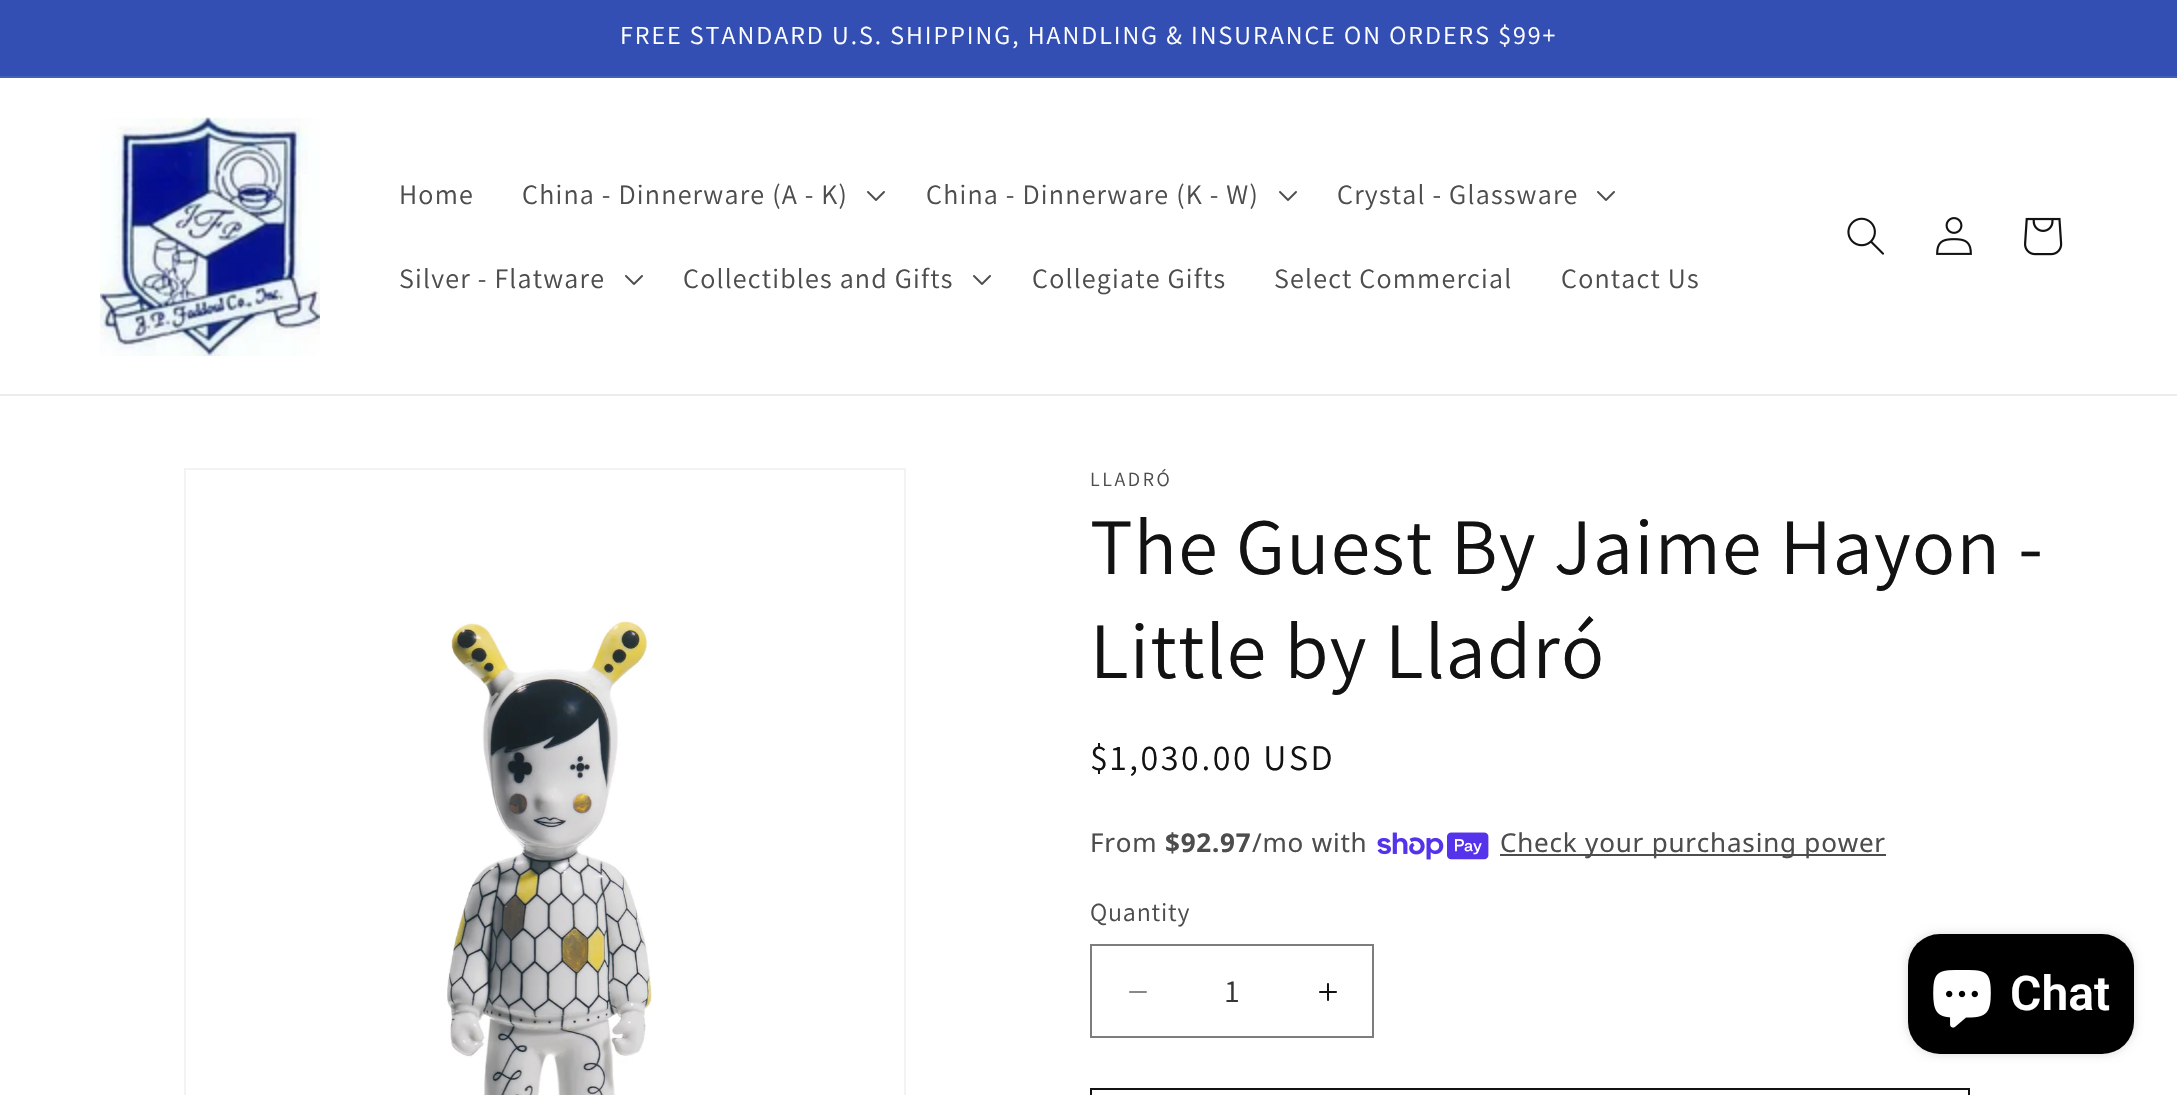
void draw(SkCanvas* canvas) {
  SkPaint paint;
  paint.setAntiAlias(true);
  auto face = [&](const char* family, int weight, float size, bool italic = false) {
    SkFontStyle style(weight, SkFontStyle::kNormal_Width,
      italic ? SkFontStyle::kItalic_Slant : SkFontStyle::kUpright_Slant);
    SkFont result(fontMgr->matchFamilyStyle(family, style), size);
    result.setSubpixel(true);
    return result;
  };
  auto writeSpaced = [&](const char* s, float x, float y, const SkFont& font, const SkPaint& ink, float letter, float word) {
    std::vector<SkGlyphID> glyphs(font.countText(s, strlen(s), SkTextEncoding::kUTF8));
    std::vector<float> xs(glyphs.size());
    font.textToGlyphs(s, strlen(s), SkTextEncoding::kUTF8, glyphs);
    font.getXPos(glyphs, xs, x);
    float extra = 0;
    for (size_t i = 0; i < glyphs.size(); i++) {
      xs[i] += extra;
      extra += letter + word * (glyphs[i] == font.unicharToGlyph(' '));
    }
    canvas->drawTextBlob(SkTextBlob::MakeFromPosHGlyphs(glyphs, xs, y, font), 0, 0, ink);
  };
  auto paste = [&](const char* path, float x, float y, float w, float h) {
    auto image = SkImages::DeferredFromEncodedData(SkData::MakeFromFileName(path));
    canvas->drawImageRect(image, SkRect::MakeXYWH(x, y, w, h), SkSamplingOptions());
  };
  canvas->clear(0xffffffff);
  {
    const struct { float x, y, w, h; SkColor color; } items[] = {
      {0, 0, 2177, 76, 0xff334fb4},
      {0, 76, 2177, 2, 0xff435dba},
      {0, 394, 2177, 2, 0xffececec},
    };
    for (auto [x, y, w, h, color] : items) {
      paint.setColor(color);
      canvas->drawRect(SkRect::MakeXYWH(x, y, w, h), paint);
    }
  }
  paste("img/1.png", 100, 117, 220, 239);
  paste("img/2.png", 867, 191, 18, 10);
  paste("img/2.png", 1279, 191, 18, 10);
  paste("img/2.png", 1597, 191, 18, 10);
  paste("img/2.png", 625, 275, 18, 10);
  paste("img/2.png", 973, 275, 18, 10);
  paste("img/3.png", 1847, 217, 37, 38);
  paste("img/4.png", 1936, 217, 36, 38);
  paste("img/5.png", 2024, 217, 39, 39);
  paint.setStroke(true);
  paint.setStrokeWidth(2);
  paint.setColor(0xfff3f3f3);
  canvas->drawRect(SkRect::MakeXYWH(185, 469, 720, 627), paint);
  paste("img/6.png", 447, 621, 205, 474);
  paste("img/7.png", 1377, 832, 112, 28);
  paint.setStroke(false);
  paint.setColor(0xff4d4d4d);
  canvas->drawRect(SkRect::MakeXYWH(1500, 854, 386, 2), paint);
  paste("img/8.png", 1129, 991, 18, 2);
  paste("img/9.png", 1319, 983, 18, 18);
  paint.setStroke(true);
  paint.setColor(0xff7d7d7d);
  canvas->drawRect(SkRect::MakeXYWH(1091, 945, 282, 92), paint);
  paint.setColor(0xff121212);
  canvas->drawRect(SkRect::MakeXYWH(1091, 1089, 878, 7), paint);
  paint.setStroke(false);
  paint.setColor(0x26000000);
  paint.setMaskFilter(SkMaskFilter::MakeBlur(kNormal_SkBlurStyle, 5));
  canvas->drawRoundRect(SkRect::MakeXYWH(1908, 934, 226, 120), 32, 32, paint);
  paint.setMaskFilter(nullptr);
  paint.setColor(0xff000000);
  canvas->drawRoundRect(SkRect::MakeXYWH(1908, 934, 226, 120), 32, 32, paint);
  paste("img/10.png", 1933, 970, 58, 58);
  auto f0 = face("Assistant", 400, 26);
  paint.setColor(0xffffffff);
  writeSpaced("FREE STANDARD U.S. SHIPPING, HANDLING & INSURANCE ON ORDERS $99+", 620, 44, f0, paint, 2, 0);
  auto f1 = face("Assistant", 400, 28);
  paint.setColor(0xff4d4d4d);
  {
    const struct { const char* s; float x, y; } items[] = {
      {"Home", 399, 204},
      {"China - Dinnerware (A - K)", 522, 204},
      {"China - Dinnerware (K - W)", 926, 204},
      {"Crystal - Glassware", 1337, 204},
      {"Silver - Flatware", 399, 288},
      {"Collectibles and Gifts", 683, 288},
      {"Collegiate Gifts", 1032, 288},
      {"Select Commercial", 1274, 288},
      {"Contact Us", 1561, 288},
    };
    for (auto [s, x, y] : items) {
      writeSpaced(s, x, y, f1, paint, 1.2f, 0);
    }
  }
  auto f2 = face("Assistant", 400, 20);
  writeSpaced("LLADRÓ", 1090, 486, f2, paint, 2.6f, 0);
  auto f3 = face("Assistant", 400, 80);
  paint.setColor(0xff121212);
  writeSpaced("The Guest By Jaime Hayon -", 1090, 574, f3, paint, 1.2f, 0);
  writeSpaced("Little by Lladró", 1090, 678, f3, paint, 1.2f, 0);
  auto f4 = face("Assistant", 400, 36);
  writeSpaced("$1,030.00 USD", 1090, 770, f4, paint, 2.6f, 0);
  auto f5 = face("Noto Sans", 400, 26);
  paint.setColor(0xff4d4d4d);
  writeSpaced("From", 1090, 852, f5, paint, 0.8f, 0);
  auto f6 = face("Noto Sans", 700, 26);
  writeSpaced("$92.97", 1165, 852, f6, paint, 0.8f, 0);
  writeSpaced("/mo with", 1252, 852, f5, paint, 0.8f, 0);
  writeSpaced("Check your purchasing power", 1500, 852, f5, paint, 0.8f, 0);
  writeSpaced("Quantity", 1090, 921, f0, paint, 0.8f, 0);
  auto f7 = face("Assistant", 400, 32);
  paint.setColor(0xff363636);
  canvas->drawString("1", 1225, 1002, f7, paint);
  auto f8 = face("Roboto", 600, 48);
  paint.setColor(0xffffffff);
  canvas->drawString("Chat", 2010, 1010, f8, paint);
}
